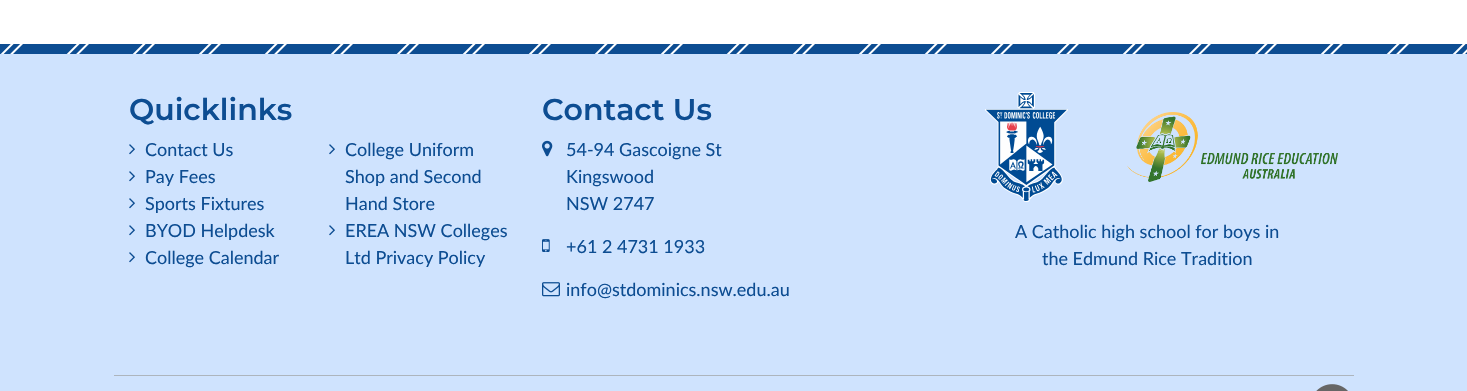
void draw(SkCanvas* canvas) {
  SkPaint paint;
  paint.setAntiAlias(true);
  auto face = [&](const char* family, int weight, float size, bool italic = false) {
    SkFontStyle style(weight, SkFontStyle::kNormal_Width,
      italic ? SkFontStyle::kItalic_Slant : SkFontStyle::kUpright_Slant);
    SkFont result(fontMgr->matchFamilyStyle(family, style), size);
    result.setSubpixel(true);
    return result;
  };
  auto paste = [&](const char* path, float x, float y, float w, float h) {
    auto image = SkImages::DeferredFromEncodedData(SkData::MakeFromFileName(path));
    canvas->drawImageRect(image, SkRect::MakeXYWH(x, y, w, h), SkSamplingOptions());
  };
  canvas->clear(0xffffffff);
  paint.setColor(0xffcfe3fe);
  canvas->drawRect(SkRect::MakeXYWH(0, 54, 1467, 337), paint);
  paste("img/1.png", 0, 44, 1467, 10);
  paste("img/2.png", 129, 144, 6, 11);
  paste("img/2.png", 329, 144, 6, 11);
  paste("img/2.png", 129, 171, 6, 11);
  paste("img/2.png", 129, 198, 6, 11);
  paste("img/2.png", 129, 225, 6, 11);
  paste("img/2.png", 329, 225, 6, 11);
  paste("img/2.png", 129, 252, 6, 11);
  paste("img/3.png", 542, 140, 11, 17);
  paste("img/4.png", 542, 239, 8, 13);
  paste("img/5.png", 542, 282, 18, 15);
  paste("img/6.png", 985, 92, 83, 110);
  paste("img/7.png", 1127, 112, 211, 70);
  paint.setColor(0xffadb5bd);
  canvas->drawRect(SkRect::MakeXYWH(114, 375, 1240, 1), paint);
  paste("img/8.png", 1316, 384, 32, 7);
  auto f0 = face("Montserrat", 600, 30);
  paint.setColor(0xff0d4d92);
  canvas->drawString("Quicklinks", 129, 120, f0, paint);
  auto f1 = face("Lato", 400, 18);
  {
    const struct { const char* s; float x, y; } items[] = {
      {"Contact Us", 145, 156},
      {"College Uniform", 345, 156},
      {"Shop and Second", 345, 183},
      {"Hand Store", 345, 210},
      {"Pay Fees", 145, 183},
      {"Sports Fixtures", 145, 210},
      {"BYOD Helpdesk", 145, 237},
      {"EREA NSW Colleges", 345, 237},
      {"Ltd Privacy Policy", 345, 264},
      {"College Calendar", 145, 264},
    };
    for (auto [s, x, y] : items) {
      canvas->drawString(s, x, y, f1, paint);
    }
  }
  canvas->drawString("Contact Us", 542, 120, f0, paint);
  {
    const struct { const char* s; float x, y; } items[] = {
      {"54-94 Gascoigne St", 566, 156},
      {"Kingswood", 566, 183},
      {"NSW 2747", 566, 210},
      {"+61 2 4731 1933", 566, 253},
      {"info@stdominics.nsw.edu.au", 566, 296},
      {"A Catholic high school for boys in", 1015, 238},
      {"the Edmund Rice Tradition", 1042, 265},
    };
    for (auto [s, x, y] : items) {
      canvas->drawString(s, x, y, f1, paint);
    }
  }
}
